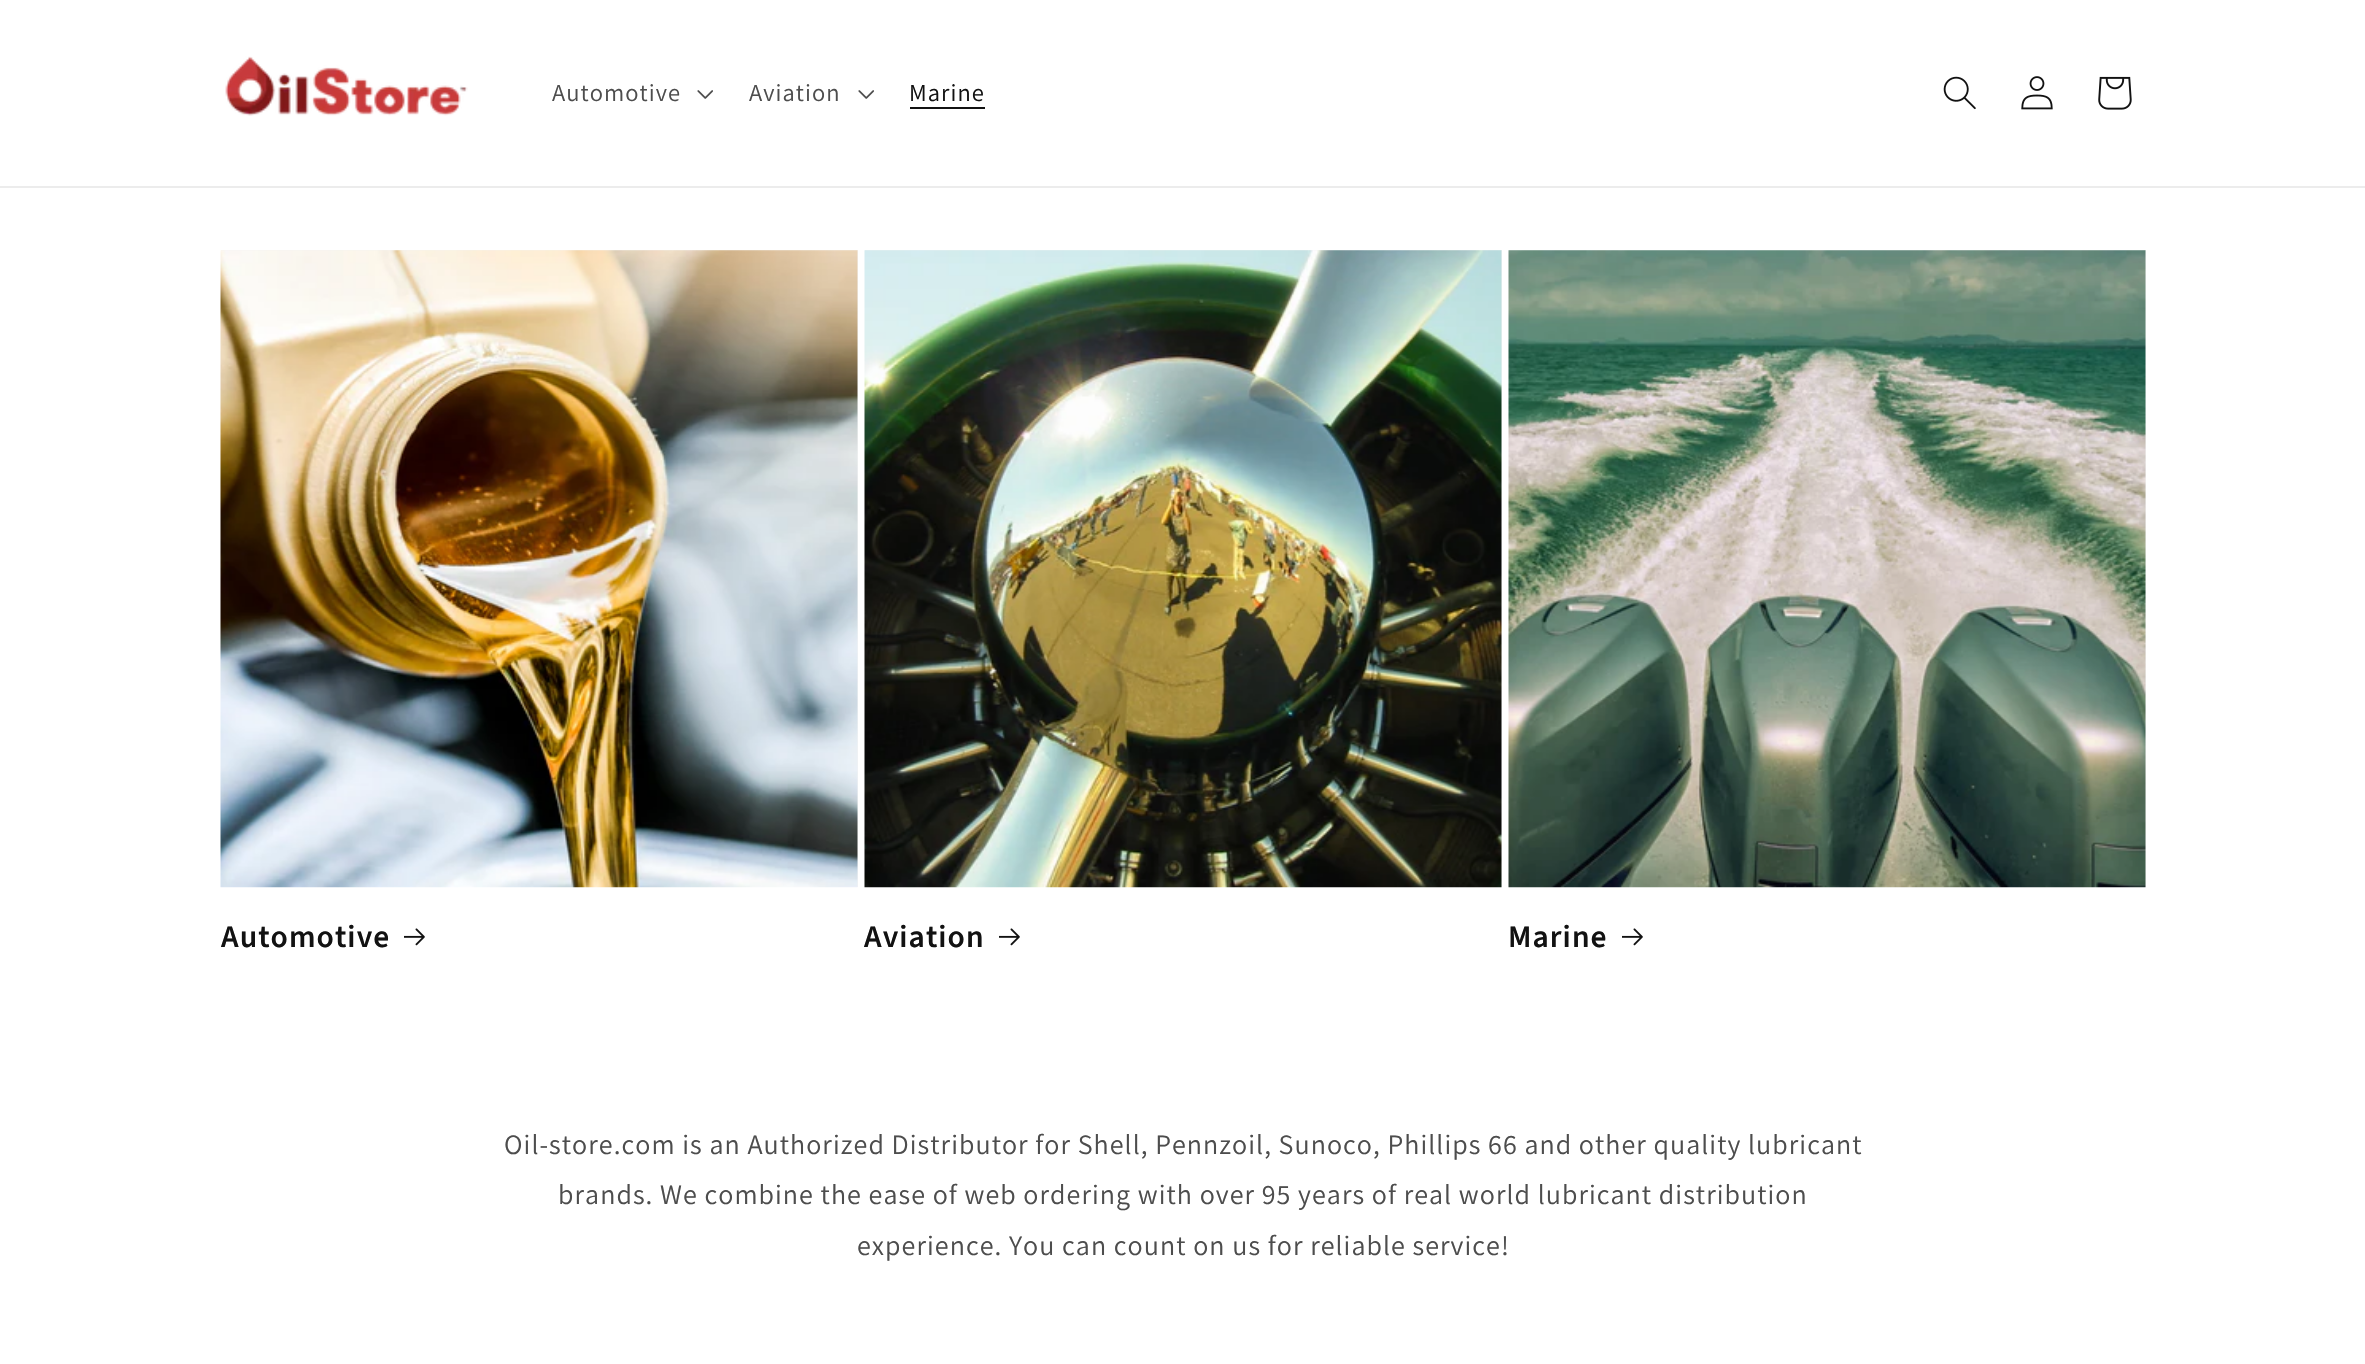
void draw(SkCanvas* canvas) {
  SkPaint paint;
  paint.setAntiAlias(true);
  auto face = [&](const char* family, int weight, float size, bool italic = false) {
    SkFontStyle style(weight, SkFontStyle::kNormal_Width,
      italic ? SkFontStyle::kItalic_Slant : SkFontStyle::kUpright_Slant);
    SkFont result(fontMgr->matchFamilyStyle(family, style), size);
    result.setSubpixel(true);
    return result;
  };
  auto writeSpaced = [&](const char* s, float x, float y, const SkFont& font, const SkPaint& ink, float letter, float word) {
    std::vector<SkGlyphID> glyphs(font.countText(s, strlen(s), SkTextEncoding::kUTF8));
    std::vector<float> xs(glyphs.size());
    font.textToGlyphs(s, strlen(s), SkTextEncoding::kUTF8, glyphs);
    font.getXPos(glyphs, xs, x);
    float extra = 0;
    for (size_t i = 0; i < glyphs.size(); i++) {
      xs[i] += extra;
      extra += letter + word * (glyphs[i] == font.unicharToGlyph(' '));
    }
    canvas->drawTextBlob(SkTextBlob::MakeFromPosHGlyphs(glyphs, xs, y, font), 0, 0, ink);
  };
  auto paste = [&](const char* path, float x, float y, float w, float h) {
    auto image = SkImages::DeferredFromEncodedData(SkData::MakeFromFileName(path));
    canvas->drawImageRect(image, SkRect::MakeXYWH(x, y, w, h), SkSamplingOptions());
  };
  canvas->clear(0xffffffff);
  paint.setColor(0xffececec);
  canvas->drawRect(SkRect::MakeXYWH(0, 186, 2365, 2), paint);
  paste("img/1.png", 225, 56, 243, 60);
  paste("img/2.png", 697, 90, 16, 9);
  paste("img/2.png", 858, 90, 16, 9);
  paint.setColor(0xff121212);
  canvas->drawRect(SkRect::MakeXYWH(910, 107, 75, 2), paint);
  paste("img/3.png", 1943, 76, 33, 34);
  paste("img/4.png", 2021, 76, 32, 34);
  paste("img/5.png", 2098, 76, 34, 34);
  paint.setColor(0xfff3f3f3);
  canvas->drawRect(SkRect::MakeXYWH(221, 250, 637, 637), paint);
  paste("img/6.png", 220, 250, 638, 638);
  paste("img/7.png", 404, 928, 21, 18);
  canvas->drawRect(SkRect::MakeXYWH(865, 250, 637, 637), paint);
  paste("img/8.png", 864, 250, 638, 638);
  paste("img/7.png", 999, 928, 21, 18);
  canvas->drawRect(SkRect::MakeXYWH(1509, 250, 637, 637), paint);
  paste("img/9.png", 1508, 250, 638, 638);
  paste("img/7.png", 1622, 928, 21, 18);
  auto f0 = face("Assistant", 400, 24.5f);
  paint.setColor(0xff4d4d4d);
  writeSpaced("Automotive", 552, 101, f0, paint, 1.05f, 0);
  writeSpaced("Aviation", 749, 101, f0, paint, 1.05f, 0);
  paint.setColor(0xff121212);
  writeSpaced("Marine", 909, 101, f0, paint, 1.05f, 0);
  auto f1 = face("Source Sans Pro", 600, 31.5f);
  {
    const struct { const char* s; float x, y; } items[] = {
      {"Automotive", 221, 947},
      {"Aviation", 864, 947},
      {"Marine", 1508, 947},
    };
    for (auto [s, x, y] : items) {
      writeSpaced(s, x, y, f1, paint, 1.05f, 0);
    }
  }
  auto f2 = face("Assistant", 400, 28);
  paint.setColor(0xff4d4d4d);
  {
    const struct { const char* s; float x, y; } items[] = {
      {"Oil-store.com is an Authorized Distributor for Shell, Pennzoil, Sunoco, Phillips 66 and other quality lubricant", 504, 1154},
      {"brands. We combine the ease of web ordering with over 95 years of real world lubricant distribution", 558, 1204},
      {"experience. You can count on us for reliable service!", 857, 1255},
    };
    for (auto [s, x, y] : items) {
      writeSpaced(s, x, y, f2, paint, 1.05f, 0);
    }
  }
}
